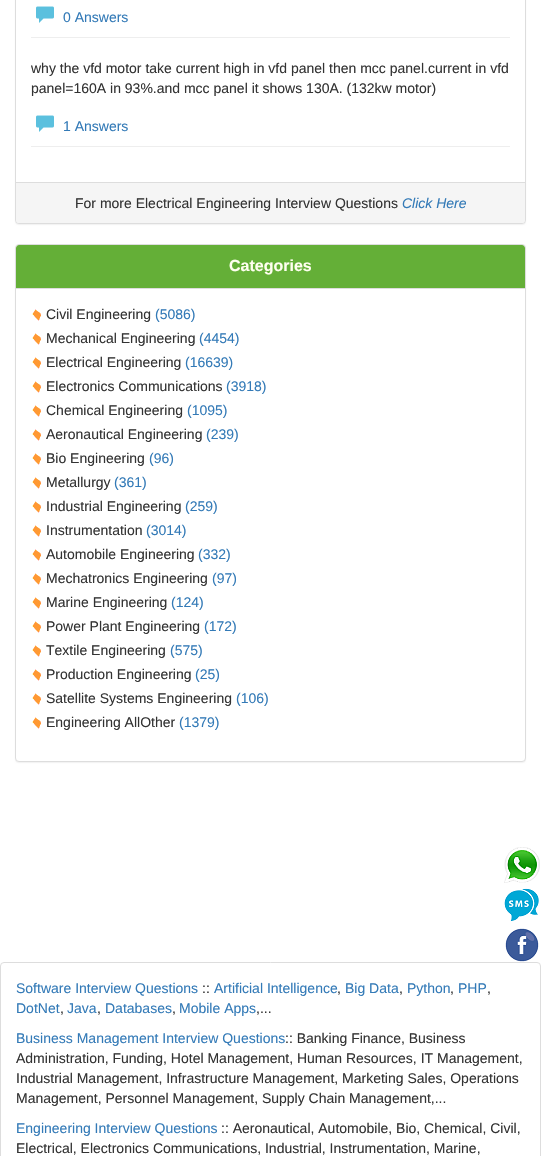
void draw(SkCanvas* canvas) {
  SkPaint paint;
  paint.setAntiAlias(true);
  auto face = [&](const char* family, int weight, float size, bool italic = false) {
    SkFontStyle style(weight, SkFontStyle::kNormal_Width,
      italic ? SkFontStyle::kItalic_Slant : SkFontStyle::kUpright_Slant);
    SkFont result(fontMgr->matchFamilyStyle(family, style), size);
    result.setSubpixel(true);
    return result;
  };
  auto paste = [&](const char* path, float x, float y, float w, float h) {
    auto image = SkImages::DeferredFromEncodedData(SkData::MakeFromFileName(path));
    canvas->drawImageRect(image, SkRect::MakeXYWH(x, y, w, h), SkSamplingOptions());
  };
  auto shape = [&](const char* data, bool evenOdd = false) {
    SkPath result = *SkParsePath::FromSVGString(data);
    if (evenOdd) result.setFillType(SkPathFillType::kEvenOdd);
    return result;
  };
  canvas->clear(0xffffffff);
  paint.setColor(0x0d000000);
  paint.setMaskFilter(SkMaskFilter::MakeBlur(kNormal_SkBlurStyle, 0.5f));
  canvas->drawRoundRect(SkRect::MakeXYWH(15, -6, 511, 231), 4, 4, paint);
  paint.setMaskFilter(nullptr);
  paint.setColor(0xffffffff);
  canvas->drawRoundRect(SkRect::MakeXYWH(15.5f, -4.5f, 510, 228), 3.5f, 3.5f, paint);
  paint.setStroke(true);
  paint.setStrokeWidth(1);
  paint.setColor(0xffdddddd);
  canvas->drawRoundRect(SkRect::MakeXYWH(15.5f, -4.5f, 510, 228), 3.5f, 3.5f, paint);
  paste("img/1.png", 36, 6, 18, 17);
  paint.setStroke(false);
  paint.setColor(0xffeeeeee);
  canvas->drawRect(SkRect::MakeXYWH(31, 37, 479, 1), paint);
  paste("img/1.png", 36, 115, 18, 17);
  canvas->drawRect(SkRect::MakeXYWH(31, 146, 479, 1), paint);
  paint.setColor(0xfff5f5f5);
  canvas->drawPath(shape("M16 182H525V220C525 221.5 523.5 223 522 223H19C17.5 223 16 221.5 16 220Z"), paint);
  paint.setColor(0xffdddddd);
  canvas->drawRect(SkRect::MakeXYWH(16, 182, 509, 1), paint);
  paint.setColor(0x0d000000);
  paint.setMaskFilter(SkMaskFilter::MakeBlur(kNormal_SkBlurStyle, 0.5f));
  canvas->drawRoundRect(SkRect::MakeXYWH(15, 245, 511, 518), 4, 4, paint);
  paint.setMaskFilter(nullptr);
  paint.setColor(0xffffffff);
  canvas->drawRoundRect(SkRect::MakeXYWH(15.5f, 244.5f, 510, 517), 3.5f, 3.5f, paint);
  paint.setStroke(true);
  paint.setColor(0xffdddddd);
  canvas->drawRoundRect(SkRect::MakeXYWH(15.5f, 244.5f, 510, 517), 3.5f, 3.5f, paint);
  paint.setStroke(false);
  paint.setColor(0xff64af37);
  canvas->drawPath(shape("M19 245H522C523.5 245 525 246.5 525 248V289H16V248C16 246.5 17.5 245 19 245Z"), paint);
  paint.setColor(0xffdddddd);
  canvas->drawRect(SkRect::MakeXYWH(16, 288, 509, 1), paint);
  paste("img/2.png", 32, 309, 9, 12);
  paste("img/2.png", 32, 333, 9, 12);
  paste("img/2.png", 32, 357, 9, 12);
  paste("img/2.png", 32, 381, 9, 12);
  paste("img/2.png", 32, 405, 9, 12);
  paste("img/2.png", 32, 429, 9, 12);
  paste("img/2.png", 32, 453, 9, 12);
  paste("img/2.png", 32, 477, 9, 12);
  paste("img/2.png", 32, 501, 9, 12);
  paste("img/2.png", 32, 525, 9, 12);
  paste("img/2.png", 32, 549, 9, 12);
  paste("img/2.png", 32, 573, 9, 12);
  paste("img/2.png", 32, 597, 9, 12);
  paste("img/2.png", 32, 621, 9, 12);
  paste("img/2.png", 32, 645, 9, 12);
  paste("img/2.png", 32, 669, 9, 12);
  paste("img/2.png", 32, 693, 9, 12);
  paste("img/2.png", 32, 717, 9, 12);
  paste("img/3.png", 504, 847, 36, 36);
  paste("img/4.png", 504, 888, 35, 34);
  paste("img/5.png", 505, 928, 34, 34);
  paint.setStroke(true);
  canvas->drawRoundRect(SkRect::MakeXYWH(0.5f, 962.5f, 540, 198), 3.5f, 3.5f, paint);
  auto f0 = face("Liberation Sans", 400, 14);
  paint.setStroke(false);
  paint.setColor(0xff337ab7);
  canvas->drawString("0 Answers", 63, 22, f0, paint);
  paint.setColor(0xff333333);
  canvas->drawString("why the vfd motor take current high in vfd panel then mcc panel.current in vfd", 31, 73, f0, paint);
  canvas->drawString("panel=160A in 93%.and mcc panel it shows 130A. (132kw motor)", 31, 93, f0, paint);
  paint.setColor(0xff337ab7);
  canvas->drawString("1 Answers", 63, 131, f0, paint);
  paint.setColor(0xff333333);
  canvas->drawString("For more Electrical Engineering Interview Questions", 75, 208, f0, paint);
  auto f1 = face("Liberation Sans", 400, 14, true);
  paint.setColor(0xff337ab7);
  canvas->drawString("Click Here", 402, 208, f1, paint);
  auto f2 = face("Liberation Sans", 700, 16);
  paint.setColor(0xfffffff0);
  canvas->drawString("Categories", 229, 271, f2, paint);
  paint.setColor(0xff333333);
  canvas->drawString("Civil Engineering", 46, 319, f0, paint);
  paint.setColor(0xff337ab7);
  canvas->drawString("(5086)", 155, 319, f0, paint);
  paint.setColor(0xff333333);
  canvas->drawString("Mechanical Engineering", 46, 343, f0, paint);
  paint.setColor(0xff337ab7);
  canvas->drawString("(4454)", 199, 343, f0, paint);
  paint.setColor(0xff333333);
  canvas->drawString("Electrical Engineering", 46, 367, f0, paint);
  paint.setColor(0xff337ab7);
  canvas->drawString("(16639)", 185, 367, f0, paint);
  paint.setColor(0xff333333);
  canvas->drawString("Electronics Communications", 46, 391, f0, paint);
  paint.setColor(0xff337ab7);
  canvas->drawString("(3918)", 226, 391, f0, paint);
  paint.setColor(0xff333333);
  canvas->drawString("Chemical Engineering", 46, 415, f0, paint);
  paint.setColor(0xff337ab7);
  canvas->drawString("(1095)", 187, 415, f0, paint);
  paint.setColor(0xff333333);
  canvas->drawString("Aeronautical Engineering", 46, 439, f0, paint);
  paint.setColor(0xff337ab7);
  canvas->drawString("(239)", 206, 439, f0, paint);
  paint.setColor(0xff333333);
  canvas->drawString("Bio Engineering", 46, 463, f0, paint);
  paint.setColor(0xff337ab7);
  canvas->drawString("(96)", 149, 463, f0, paint);
  paint.setColor(0xff333333);
  canvas->drawString("Metallurgy", 46, 487, f0, paint);
  paint.setColor(0xff337ab7);
  canvas->drawString("(361)", 114, 487, f0, paint);
  paint.setColor(0xff333333);
  canvas->drawString("Industrial Engineering", 46, 511, f0, paint);
  paint.setColor(0xff337ab7);
  canvas->drawString("(259)", 185, 511, f0, paint);
  paint.setColor(0xff333333);
  canvas->drawString("Instrumentation", 46, 535, f0, paint);
  paint.setColor(0xff337ab7);
  canvas->drawString("(3014)", 146, 535, f0, paint);
  paint.setColor(0xff333333);
  canvas->drawString("Automobile Engineering", 46, 559, f0, paint);
  paint.setColor(0xff337ab7);
  canvas->drawString("(332)", 198, 559, f0, paint);
  paint.setColor(0xff333333);
  canvas->drawString("Mechatronics Engineering", 46, 583, f0, paint);
  paint.setColor(0xff337ab7);
  canvas->drawString("(97)", 212, 583, f0, paint);
  paint.setColor(0xff333333);
  canvas->drawString("Marine Engineering", 46, 607, f0, paint);
  paint.setColor(0xff337ab7);
  canvas->drawString("(124)", 171, 607, f0, paint);
  paint.setColor(0xff333333);
  canvas->drawString("Power Plant Engineering", 46, 631, f0, paint);
  paint.setColor(0xff337ab7);
  canvas->drawString("(172)", 204, 631, f0, paint);
  paint.setColor(0xff333333);
  canvas->drawString("Textile Engineering", 46, 655, f0, paint);
  paint.setColor(0xff337ab7);
  canvas->drawString("(575)", 170, 655, f0, paint);
  paint.setColor(0xff333333);
  canvas->drawString("Production Engineering", 46, 679, f0, paint);
  paint.setColor(0xff337ab7);
  canvas->drawString("(25)", 195, 679, f0, paint);
  paint.setColor(0xff333333);
  canvas->drawString("Satellite Systems Engineering", 46, 703, f0, paint);
  paint.setColor(0xff337ab7);
  canvas->drawString("(106)", 236, 703, f0, paint);
  paint.setColor(0xff333333);
  canvas->drawString("Engineering AllOther", 46, 727, f0, paint);
  paint.setColor(0xff337ab7);
  canvas->drawString("(1379)", 179, 727, f0, paint);
  canvas->drawString("Software Interview Questions", 16, 993, f0, paint);
  paint.setColor(0xff333333);
  canvas->drawString("::", 202, 993, f0, paint);
  paint.setColor(0xff337ab7);
  canvas->drawString("Artificial Intelligence", 214, 993, f0, paint);
  paint.setColor(0xff333333);
  canvas->drawString(",", 337, 993, f0, paint);
  paint.setColor(0xff337ab7);
  canvas->drawString("Big Data", 345, 993, f0, paint);
  paint.setColor(0xff333333);
  canvas->drawString(",", 399, 993, f0, paint);
  paint.setColor(0xff337ab7);
  canvas->drawString("Python", 407, 993, f0, paint);
  paint.setColor(0xff333333);
  canvas->drawString(",", 450, 993, f0, paint);
  paint.setColor(0xff337ab7);
  canvas->drawString("PHP", 458, 993, f0, paint);
  paint.setColor(0xff333333);
  canvas->drawString(",", 487, 993, f0, paint);
  paint.setColor(0xff337ab7);
  canvas->drawString("DotNet", 16, 1013, f0, paint);
  paint.setColor(0xff333333);
  canvas->drawString(",", 60, 1013, f0, paint);
  paint.setColor(0xff337ab7);
  canvas->drawString("Java", 67, 1013, f0, paint);
  paint.setColor(0xff333333);
  canvas->drawString(",", 97, 1013, f0, paint);
  paint.setColor(0xff337ab7);
  canvas->drawString("Databases", 105, 1013, f0, paint);
  paint.setColor(0xff333333);
  canvas->drawString(",", 172, 1013, f0, paint);
  paint.setColor(0xff337ab7);
  canvas->drawString("Mobile Apps", 179, 1013, f0, paint);
  paint.setColor(0xff333333);
  canvas->drawString(",...", 256, 1013, f0, paint);
  paint.setColor(0xff337ab7);
  canvas->drawString("Business Management Interview Questions", 16, 1043, f0, paint);
  paint.setColor(0xff333333);
  {
    const struct { const char* s; float x, y; } items[] = {
      {":: Banking Finance, Business", 285, 1043},
      {"Administration, Funding, Hotel Management, Human Resources, IT Management,", 16, 1063},
      {"Industrial Management, Infrastructure Management, Marketing Sales, Operations", 16, 1083},
      {"Management, Personnel Management, Supply Chain Management,...", 16, 1103},
    };
    for (auto [s, x, y] : items) {
      canvas->drawString(s, x, y, f0, paint);
    }
  }
  paint.setColor(0xff337ab7);
  canvas->drawString("Engineering Interview Questions", 16, 1133, f0, paint);
  paint.setColor(0xff333333);
  canvas->drawString(":: Aeronautical, Automobile, Bio, Chemical, Civil,", 221, 1133, f0, paint);
  canvas->drawString("Electrical, Electronics Communications, Industrial, Instrumentation, Marine,", 16, 1153, f0, paint);
}
